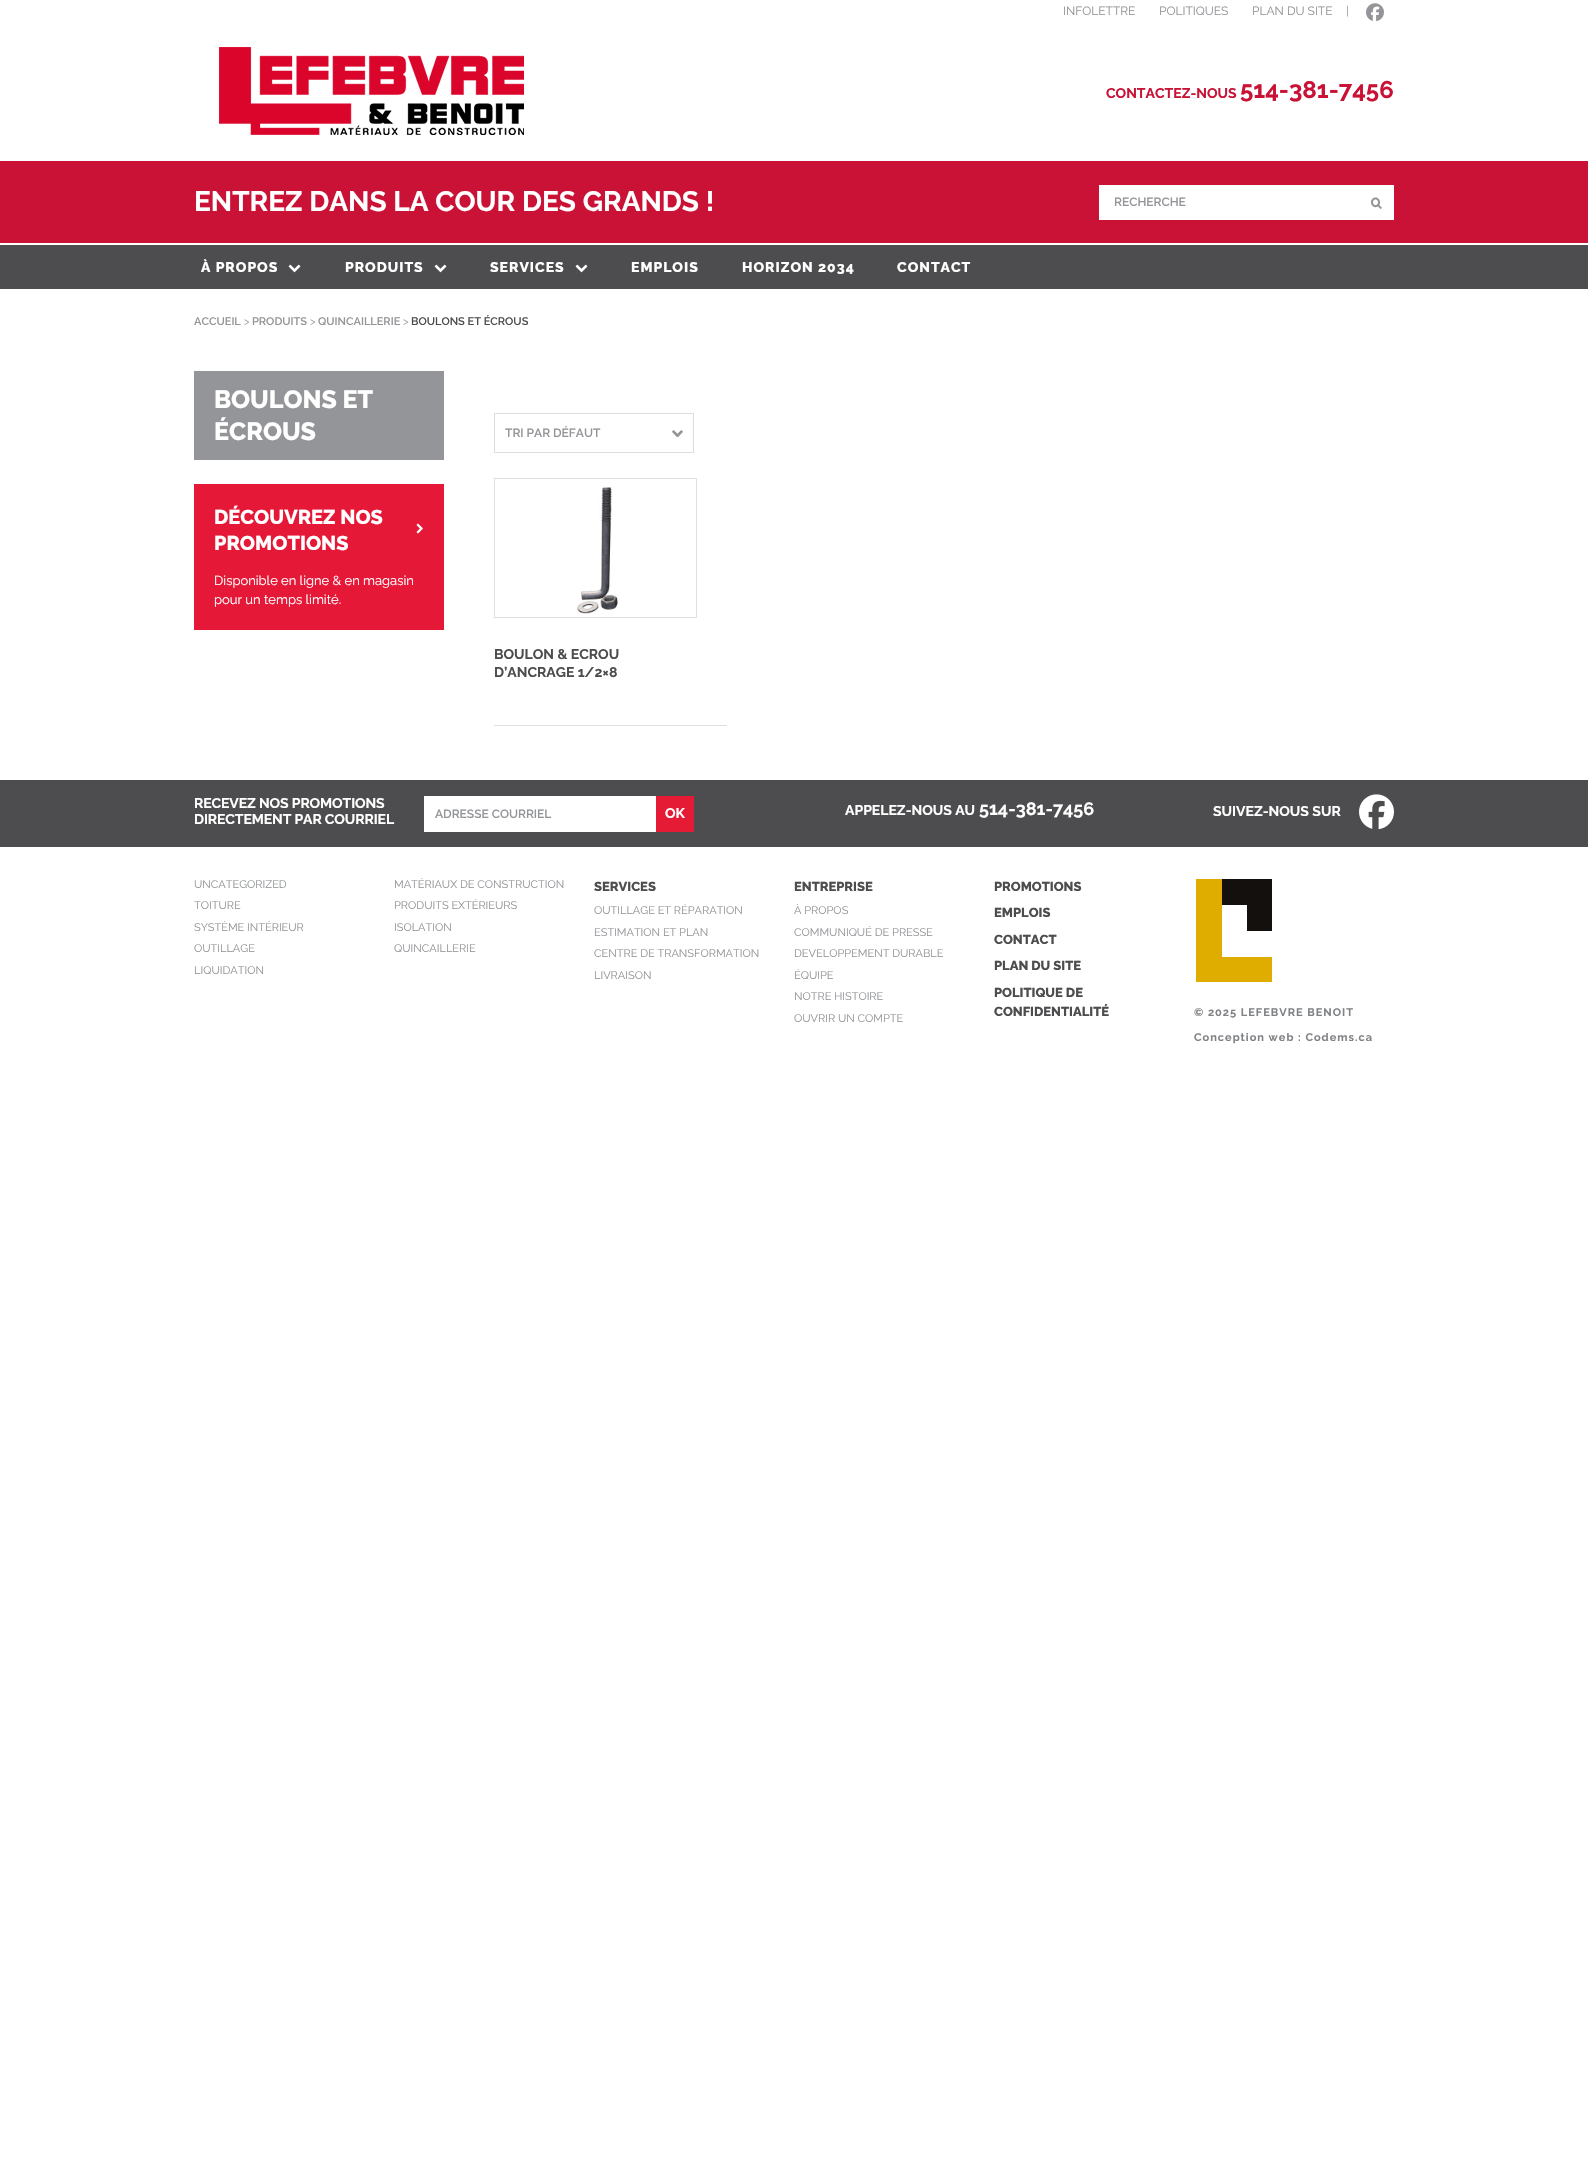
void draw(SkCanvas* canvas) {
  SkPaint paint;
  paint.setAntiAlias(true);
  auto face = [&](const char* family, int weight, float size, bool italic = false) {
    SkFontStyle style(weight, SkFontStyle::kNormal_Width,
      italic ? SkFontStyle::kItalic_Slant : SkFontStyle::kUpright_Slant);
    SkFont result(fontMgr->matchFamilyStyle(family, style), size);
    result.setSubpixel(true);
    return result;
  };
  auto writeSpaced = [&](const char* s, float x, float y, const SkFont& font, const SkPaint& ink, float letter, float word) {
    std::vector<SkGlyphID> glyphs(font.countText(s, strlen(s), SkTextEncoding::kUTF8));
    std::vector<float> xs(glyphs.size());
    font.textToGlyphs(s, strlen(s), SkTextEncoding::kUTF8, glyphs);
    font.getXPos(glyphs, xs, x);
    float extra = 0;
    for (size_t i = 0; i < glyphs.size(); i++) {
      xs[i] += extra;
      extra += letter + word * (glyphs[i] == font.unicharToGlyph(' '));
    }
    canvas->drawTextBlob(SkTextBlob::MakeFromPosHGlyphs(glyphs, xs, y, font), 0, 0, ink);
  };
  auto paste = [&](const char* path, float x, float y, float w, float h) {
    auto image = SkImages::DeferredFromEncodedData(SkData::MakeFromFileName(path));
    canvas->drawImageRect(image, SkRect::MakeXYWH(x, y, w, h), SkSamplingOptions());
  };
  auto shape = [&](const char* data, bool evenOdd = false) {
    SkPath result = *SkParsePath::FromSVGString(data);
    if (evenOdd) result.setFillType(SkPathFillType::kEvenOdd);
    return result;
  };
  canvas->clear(0xffffffff);
  paste("img/1.png", 1366, 3, 18, 19);
  paste("img/2.png", 219, 47, 305, 88);
  paint.setColor(0xffc91235);
  canvas->drawRect(SkRect::MakeXYWH(0, 161, 1588, 82), paint);
  paint.setColor(0xffffffff);
  canvas->drawRect(SkRect::MakeXYWH(1099, 185, 295, 35), paint);
  paste("img/3.png", 1371, 197, 11, 12);
  paint.setColor(0xff4d4d4f);
  canvas->drawRect(SkRect::MakeXYWH(0, 245, 1588, 44), paint);
  paste("img/4.png", 288, 264, 13, 9);
  paste("img/4.png", 434, 264, 13, 9);
  paste("img/4.png", 575, 264, 13, 9);
  paint.setColor(0xff949599);
  canvas->drawRect(SkRect::MakeXYWH(194, 371, 250, 89), paint);
  paint.setColor(0xffe51837);
  canvas->drawRect(SkRect::MakeXYWH(194, 484, 250, 146), paint);
  paste("img/5.png", 416, 523, 7, 11);
  paste("img/6.png", 672, 430, 11, 7);
  paint.setStroke(true);
  paint.setStrokeWidth(1);
  paint.setColor(0xffdcddde);
  canvas->drawRect(SkRect::MakeXYWH(494.5f, 413.5f, 199, 39), paint);
  paint.setStroke(false);
  paint.setColor(0xffdedfe0);
  canvas->drawRect(SkRect::MakeXYWH(494, 725, 233, 1), paint);
  paint.setStroke(true);
  canvas->drawRect(SkRect::MakeXYWH(494.5f, 478.5f, 202, 139), paint);
  paste("img/7.png", 577, 486, 41, 128);
  paint.setStroke(false);
  {
    const struct { float x, y, w, h; SkColor color; } items[] = {
      {0, 780, 1588, 67, 0xff4d4d4f},
      {424, 796, 232, 36, 0xffffffff},
      {656, 796, 38, 36, 0xffe51b35},
    };
    for (auto [x, y, w, h, color] : items) {
      paint.setColor(color);
      canvas->drawRect(SkRect::MakeXYWH(x, y, w, h), paint);
    }
  }
  paste("img/8.png", 1359, 794, 35, 36);
  paint.setColor(0xff13100d);
  canvas->drawPath(shape("M1247 905V931H1272V879H1222V905Z"), paint);
  paint.setColor(0xffdfac00);
  canvas->drawPath(shape("M1222 957V879H1196V982H1272V957Z"), paint);
  auto f0 = face("Raleway", 400, 12);
  paint.setColor(0xff939598);
  {
    const struct { const char* s; float x, y; } items[] = {
      {"INFOLETTRE", 1063, 15},
      {"POLITIQUES", 1159, 15},
      {"PLAN DU SITE", 1252, 15},
      {"|", 1346, 15},
    };
    for (auto [s, x, y] : items) {
      canvas->drawString(s, x, y, f0, paint);
    }
  }
  auto f1 = face("Raleway", 700, 14);
  paint.setColor(0xffc91235);
  canvas->drawString("CONTACTEZ-NOUS", 1106, 98, f1, paint);
  auto f2 = face("Raleway", 700, 24);
  canvas->drawString("514-381-7456", 1240, 98, f2, paint);
  auto f3 = face("Raleway", 700, 28);
  paint.setColor(0xffffffff);
  canvas->drawString("ENTREZ DANS LA COUR DES GRANDS !", 194, 211, f3, paint);
  auto f4 = face("Raleway", 600, 12);
  paint.setColor(0xff939598);
  canvas->drawString("RECHERCHE", 1114, 206, f4, paint);
  auto f5 = face("Raleway", 800, 14);
  paint.setColor(0xffffffff);
  {
    const struct { const char* s; float x, y; } items[] = {
      {"À PROPOS", 201, 272},
      {"PRODUITS", 345, 272},
      {"SERVICES", 490, 272},
      {"EMPLOIS", 631, 272},
      {"HORIZON 2034", 742, 272},
      {"CONTACT", 897, 272},
    };
    for (auto [s, x, y] : items) {
      writeSpaced(s, x, y, f5, paint, 1, 0);
    }
  }
  auto f6 = face("Raleway", 600, 11);
  paint.setColor(0xff939598);
  canvas->drawString("ACCUEIL", 194, 325, f6, paint);
  auto f7 = face("Raleway", 400, 11);
  canvas->drawString(">", 244, 325, f7, paint);
  canvas->drawString("PRODUITS", 252, 325, f6, paint);
  canvas->drawString(">", 310, 325, f7, paint);
  canvas->drawString("QUINCAILLERIE", 318, 325, f6, paint);
  canvas->drawString(">", 403, 325, f7, paint);
  paint.setColor(0xff4d4d4f);
  canvas->drawString("BOULONS ET ÉCROUS", 411, 325, f6, paint);
  auto f8 = face("Raleway", 800, 25);
  paint.setColor(0xffffffff);
  canvas->drawString("BOULONS ET", 214, 408, f8, paint);
  canvas->drawString("ÉCROUS", 214, 440, f8, paint);
  auto f9 = face("Raleway", 800, 20);
  canvas->drawString("DÉCOUVREZ NOS", 214, 524, f9, paint);
  canvas->drawString("PROMOTIONS", 214, 550, f9, paint);
  auto f10 = face("Raleway", 400, 13);
  canvas->drawString("Disponible en ligne & en magasin", 214, 585, f10, paint);
  canvas->drawString("pour un temps limité.", 214, 604, f10, paint);
  paint.setColor(0xff939598);
  canvas->drawString("TRI PAR DÉFAUT", 505, 437, f4, paint);
  paint.setColor(0xff4d4d4f);
  canvas->drawString("BOULON & ECROU", 494, 659, f1, paint);
  canvas->drawString("D’ANCRAGE 1/2×8", 494, 677, f1, paint);
  paint.setColor(0xffffffff);
  writeSpaced("RECEVEZ NOS PROMOTIONS", 194, 808, f1, paint, -0.1f, 0);
  writeSpaced("DIRECTEMENT PAR COURRIEL", 194, 824, f1, paint, -0.1f, 0);
  paint.setColor(0xff939598);
  canvas->drawString("ADRESSE COURRIEL", 435, 818, f4, paint);
  paint.setColor(0xffffffff);
  canvas->drawString("OK", 665, 818, f1, paint);
  canvas->drawString("APPELEZ-NOUS AU", 845, 815, f1, paint);
  auto f11 = face("Raleway", 700, 18);
  canvas->drawString("514-381-7456", 979, 815, f11, paint);
  canvas->drawString("SUIVEZ-NOUS SUR", 1213, 816, f1, paint);
  paint.setColor(0xff939598);
  {
    const struct { const char* s; float x, y; } items[] = {
      {"UNCATEGORIZED", 194, 888},
      {"MATÉRIAUX DE CONSTRUCTION", 394, 888},
      {"TOITURE", 194, 909},
      {"PRODUITS EXTÉRIEURS", 394, 909},
      {"SYSTÈME INTÉRIEUR", 194, 931},
      {"ISOLATION", 394, 931},
      {"OUTILLAGE", 194, 952},
      {"QUINCAILLERIE", 394, 952},
      {"LIQUIDATION", 194, 974},
    };
    for (auto [s, x, y] : items) {
      canvas->drawString(s, x, y, f7, paint);
    }
  }
  auto f12 = face("Raleway", 800, 13);
  paint.setColor(0xff4d4d4f);
  canvas->drawString("SERVICES", 594, 891, f12, paint);
  paint.setColor(0xff939598);
  {
    const struct { const char* s; float x, y; } items[] = {
      {"OUTILLAGE ET RÉPARATION", 594, 914},
      {"ESTIMATION ET PLAN", 594, 936},
      {"CENTRE DE TRANSFORMATION", 594, 957},
      {"LIVRAISON", 594, 979},
    };
    for (auto [s, x, y] : items) {
      canvas->drawString(s, x, y, f7, paint);
    }
  }
  paint.setColor(0xff4d4d4f);
  canvas->drawString("ENTREPRISE", 794, 891, f12, paint);
  paint.setColor(0xff939598);
  {
    const struct { const char* s; float x, y; } items[] = {
      {"À PROPOS", 794, 914},
      {"COMMUNIQUÉ DE PRESSE", 794, 936},
      {"DEVELOPPEMENT DURABLE", 794, 957},
      {"ÉQUIPE", 794, 979},
      {"NOTRE HISTOIRE", 794, 1000},
      {"OUVRIR UN COMPTE", 794, 1022},
    };
    for (auto [s, x, y] : items) {
      canvas->drawString(s, x, y, f7, paint);
    }
  }
  paint.setColor(0xff4d4d4f);
  {
    const struct { const char* s; float x, y; } items[] = {
      {"PROMOTIONS", 994, 891},
      {"EMPLOIS", 994, 917},
      {"CONTACT", 994, 944},
      {"PLAN DU SITE", 994, 970},
      {"POLITIQUE DE", 994, 997},
      {"CONFIDENTIALITÉ", 994, 1016},
    };
    for (auto [s, x, y] : items) {
      canvas->drawString(s, x, y, f12, paint);
    }
  }
  auto f13 = face("Raleway", 700, 11);
  paint.setColor(0xff808285);
  writeSpaced("© 2025 LEFEBVRE BENOIT", 1194, 1016, f13, paint, 1, 0);
  writeSpaced("Conception web : Codems.ca", 1194, 1041, f13, paint, 1, 0);
}
